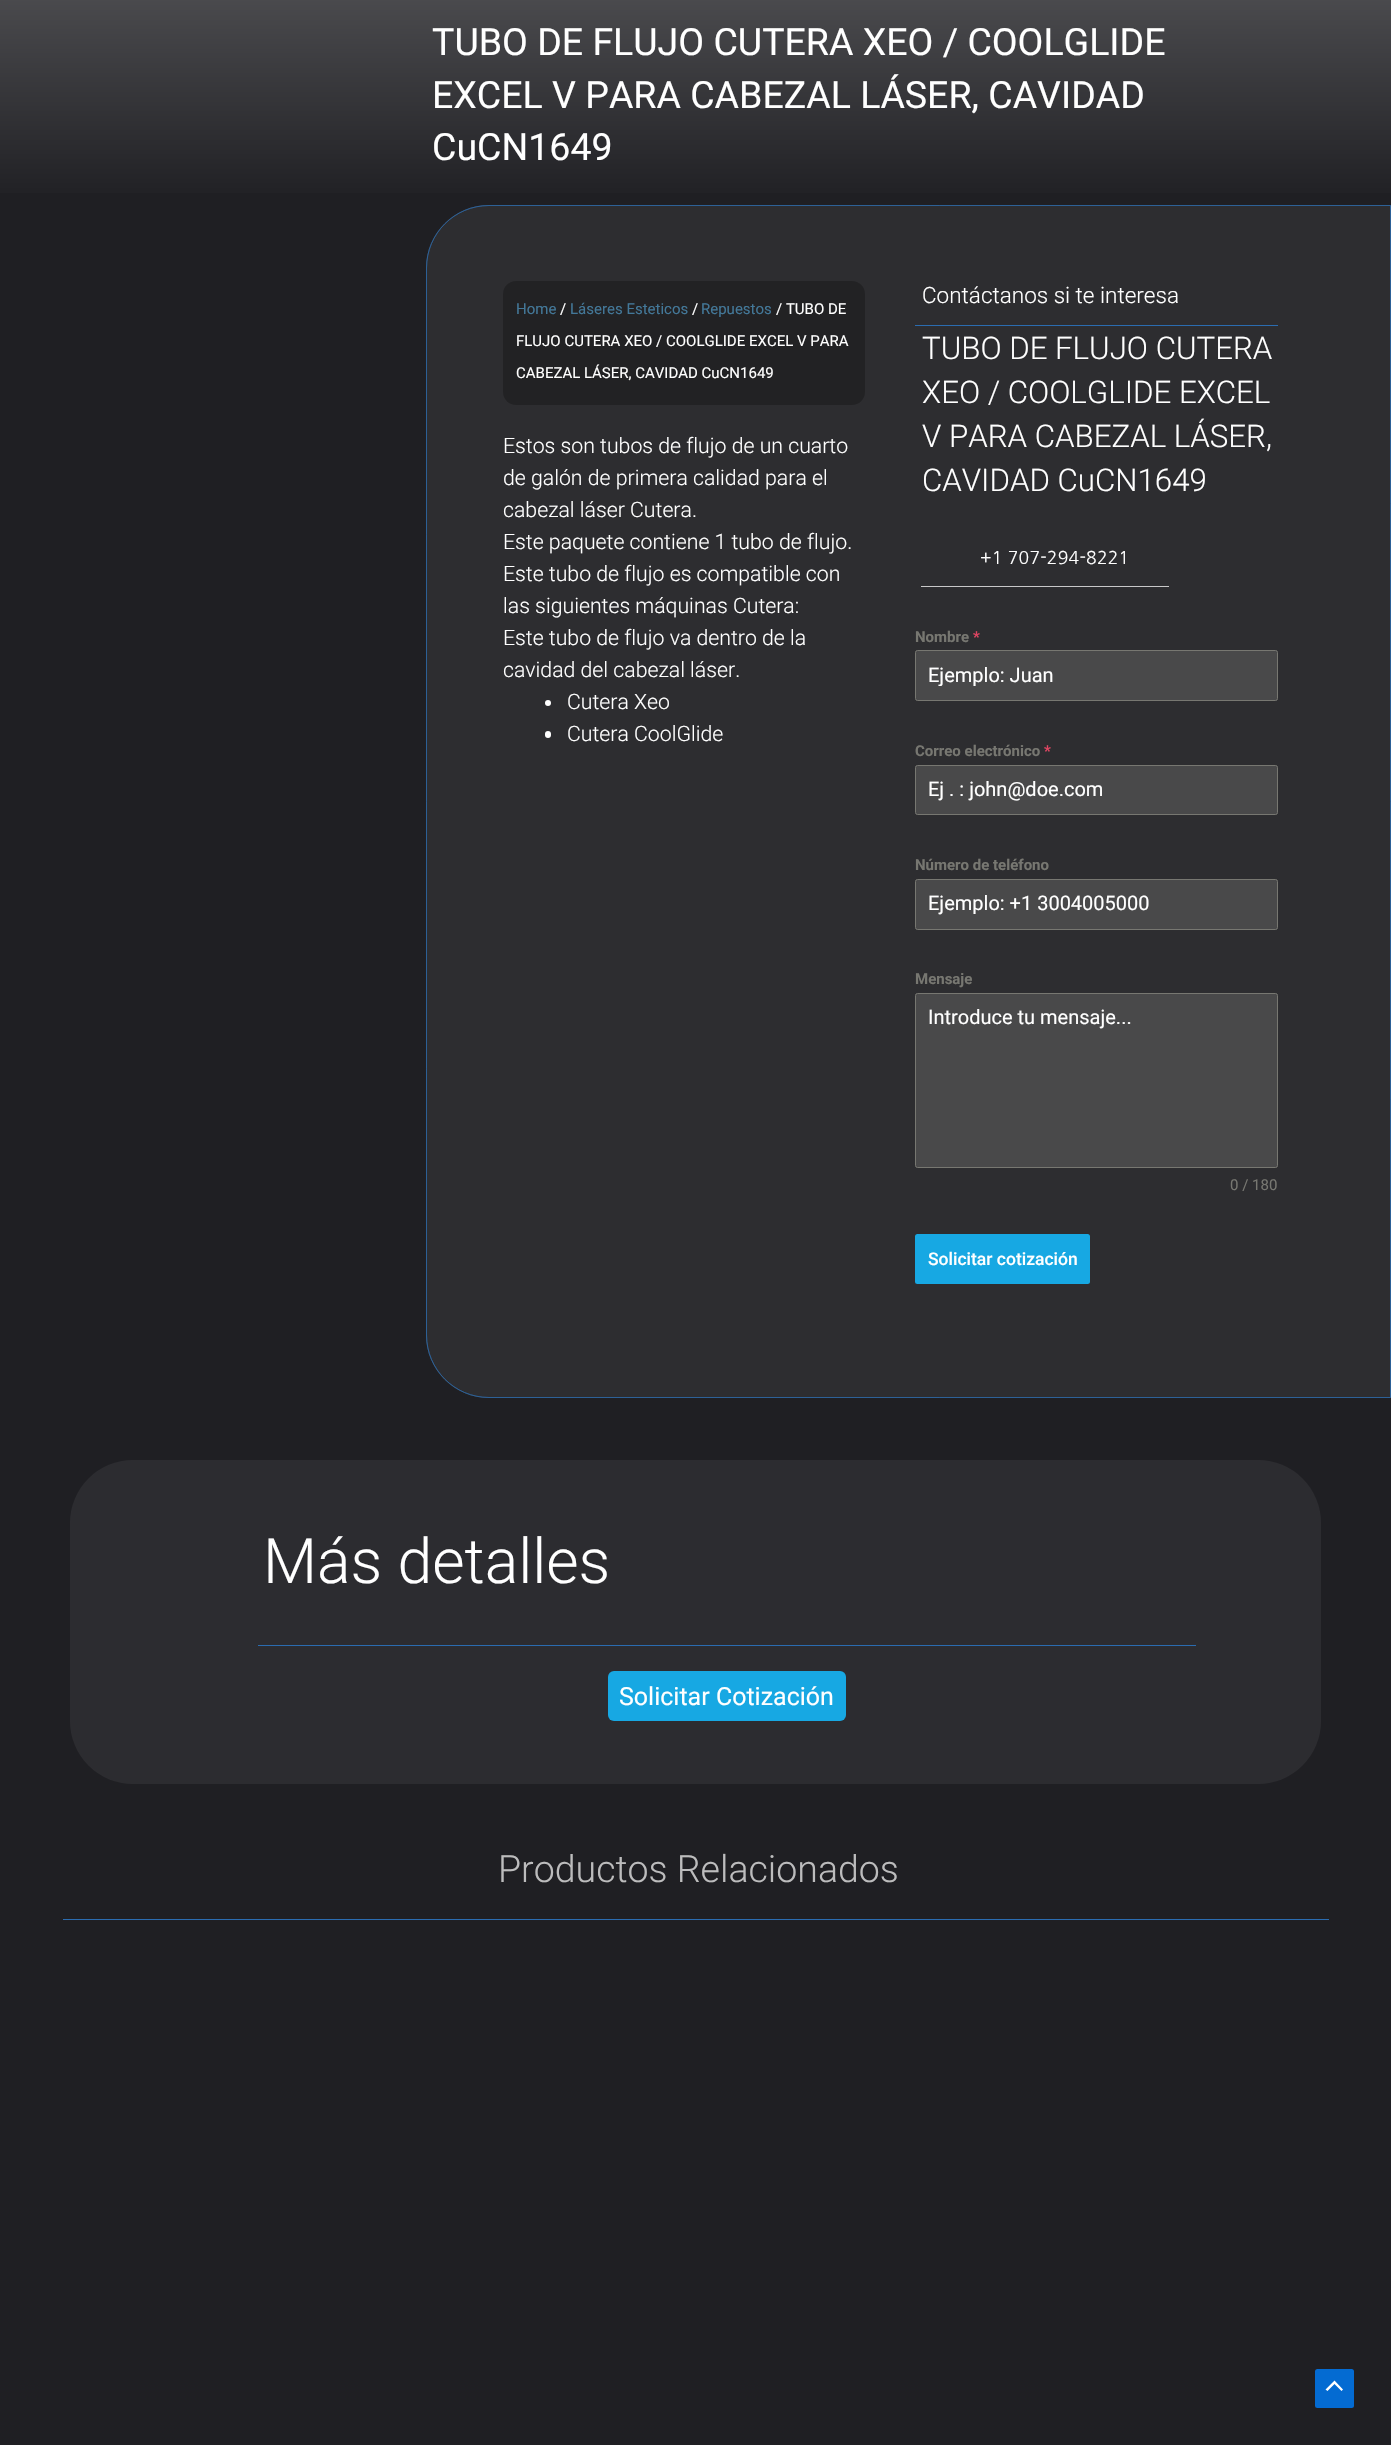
void draw(SkCanvas* canvas) {
  SkPaint paint;
  paint.setAntiAlias(true);
  auto face = [&](const char* family, int weight, float size, bool italic = false) {
    SkFontStyle style(weight, SkFontStyle::kNormal_Width,
      italic ? SkFontStyle::kItalic_Slant : SkFontStyle::kUpright_Slant);
    SkFont result(fontMgr->matchFamilyStyle(family, style), size);
    result.setSubpixel(true);
    return result;
  };
  auto writeSpaced = [&](const char* s, float x, float y, const SkFont& font, const SkPaint& ink, float letter, float word) {
    std::vector<SkGlyphID> glyphs(font.countText(s, strlen(s), SkTextEncoding::kUTF8));
    std::vector<float> xs(glyphs.size());
    font.textToGlyphs(s, strlen(s), SkTextEncoding::kUTF8, glyphs);
    font.getXPos(glyphs, xs, x);
    float extra = 0;
    for (size_t i = 0; i < glyphs.size(); i++) {
      xs[i] += extra;
      extra += letter + word * (glyphs[i] == font.unicharToGlyph(' '));
    }
    canvas->drawTextBlob(SkTextBlob::MakeFromPosHGlyphs(glyphs, xs, y, font), 0, 0, ink);
  };
  auto shape = [&](const char* data, bool evenOdd = false) {
    SkPath result = *SkParsePath::FromSVGString(data);
    if (evenOdd) result.setFillType(SkPathFillType::kEvenOdd);
    return result;
  };
  canvas->clear(0xff1f1f23);
  {
    const SkColor colors[] = {0xff929294, 0xff1f1f23};
    const float stops[] = {0.27f, 1};
    const SkPoint ends[] = {{696, -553}, {696, 205}};
    paint.setShader(SkGradientShader::MakeLinear(ends, colors, stops, 2, SkTileMode::kClamp));
    paint.setAlpha(255);
  }
  canvas->drawRect(SkRect::MakeXYWH(0, 0, 1391, 193), paint);
  paint.setShader(nullptr);
  paint.setColor(0xff2d2d30);
  canvas->drawPath(shape("M489 205H1391V1398H489C454 1398 426 1370 426 1335V268C426 233 454 205 489 205Z"), paint);
  paint.setStroke(true);
  paint.setStrokeWidth(1);
  paint.setColor(0x9e2b6cb0);
  canvas->drawPath(shape("M489 205.5H1390.5V1397.5H489C454.5 1397.5 426.5 1369.5 426.5 1335V268C426.5 233.5 454.5 205.5 489 205.5Z"), paint);
  paint.setColor(0x7a2b6cb0);
  canvas->drawPath(shape("M489 205.5H1390.5V1397.5H489C454.5 1397.5 426.5 1369.5 426.5 1335V268C426.5 233.5 454.5 205.5 489 205.5Z"), paint);
  paint.setStroke(false);
  paint.setColor(0xff222224);
  canvas->drawRoundRect(SkRect::MakeXYWH(503, 281, 362, 124), 13, 13, paint);
  paint.setColor(0xffffffff);
  canvas->drawCircle(548, 703, 3, paint);
  canvas->drawRoundRect(SkRect::MakeXYWH(545, 731, 6, 7), 3, 3, paint);
  paint.setColor(0xff2b6cb0);
  canvas->drawRect(SkRect::MakeXYWH(915, 325, 363, 1), paint);
  paint.setColor(0xffc8c8c9);
  canvas->drawRect(SkRect::MakeXYWH(921, 586, 248, 1), paint);
  paint.setColor(0xff49494a);
  canvas->drawRoundRect(SkRect::MakeXYWH(915.5f, 650.5f, 362, 50), 2, 2, paint);
  paint.setStroke(true);
  paint.setColor(0xff777771);
  canvas->drawRoundRect(SkRect::MakeXYWH(915.5f, 650.5f, 362, 50), 2, 2, paint);
  paint.setStroke(false);
  paint.setColor(0xff49494a);
  canvas->drawRoundRect(SkRect::MakeXYWH(915.5f, 765.5f, 362, 49), 2, 2, paint);
  paint.setStroke(true);
  paint.setColor(0xff777771);
  canvas->drawRoundRect(SkRect::MakeXYWH(915.5f, 765.5f, 362, 49), 2, 2, paint);
  paint.setStroke(false);
  paint.setColor(0xff49494a);
  canvas->drawRoundRect(SkRect::MakeXYWH(915.5f, 879.5f, 362, 50), 2, 2, paint);
  paint.setStroke(true);
  paint.setColor(0xff777771);
  canvas->drawRoundRect(SkRect::MakeXYWH(915.5f, 879.5f, 362, 50), 2, 2, paint);
  paint.setStroke(false);
  paint.setColor(0xff49494a);
  canvas->drawRoundRect(SkRect::MakeXYWH(915.5f, 993.5f, 362, 174), 2, 2, paint);
  paint.setStroke(true);
  paint.setColor(0xff777771);
  canvas->drawRoundRect(SkRect::MakeXYWH(915.5f, 993.5f, 362, 174), 2, 2, paint);
  paint.setStroke(false);
  paint.setColor(0xff17a8e3);
  canvas->drawRoundRect(SkRect::MakeXYWH(915, 1234, 175, 50), 2.5f, 2.5f, paint);
  paint.setColor(0xff2c2c30);
  canvas->drawRoundRect(SkRect::MakeXYWH(70, 1460, 1251, 324), 63, 63, paint);
  paint.setColor(0xff2b6cb0);
  canvas->drawRect(SkRect::MakeXYWH(258, 1645, 938, 1), paint);
  paint.setColor(0xff17a8e3);
  canvas->drawRoundRect(SkRect::MakeXYWH(608, 1671, 238, 50), 6, 6, paint);
  paint.setColor(0xff2b6cb0);
  canvas->drawRect(SkRect::MakeXYWH(63, 1919, 1266, 1), paint);
  paint.setColor(0xff046bd2);
  canvas->drawRoundRect(SkRect::MakeXYWH(1315, 2369, 39, 39), 2.5f, 2.5f, paint);
  paint.setColor(0xffffffff);
  canvas->drawPath(shape("M1343 2389.5L1334.5 2380.5L1325.5 2389.5L1327.5 2391L1334.5 2384L1341.5 2391Z"), paint);
  auto f0 = face("Roboto", 400, 37.5f);
  {
    const struct { const char* s; float x, y; } items[] = {
      {"TUBO DE FLUJO CUTERA XEO / COOLGLIDE", 432, 55},
      {"EXCEL V PARA CABEZAL LÁSER, CAVIDAD", 432, 108},
      {"CuCN1649", 432, 160},
    };
    for (auto [s, x, y] : items) {
      canvas->drawString(s, x, y, f0, paint);
    }
  }
  auto f1 = face("Roboto", 400, 15);
  paint.setColor(0xff437899);
  canvas->drawString("Home", 516, 314, f1, paint);
  paint.setColor(0xffffffff);
  canvas->drawString("/", 560, 314, f1, paint);
  paint.setColor(0xff437899);
  canvas->drawString("Láseres Esteticos", 570, 314, f1, paint);
  paint.setColor(0xffffffff);
  canvas->drawString("/", 692, 314, f1, paint);
  paint.setColor(0xff437899);
  canvas->drawString("Repuestos", 701, 314, f1, paint);
  paint.setColor(0xffffffff);
  {
    const struct { const char* s; float x, y; } items[] = {
      {"/ TUBO DE", 776, 314},
      {"FLUJO CUTERA XEO / COOLGLIDE EXCEL V PARA", 516, 346},
      {"CABEZAL LÁSER, CAVIDAD CuCN1649", 516, 378},
    };
    for (auto [s, x, y] : items) {
      canvas->drawString(s, x, y, f1, paint);
    }
  }
  auto f2 = face("Roboto", 300, 21.25f);
  {
    const struct { const char* s; float x, y; } items[] = {
      {"Estos son tubos de flujo de un cuarto", 503, 453},
      {"de galón de primera calidad para el", 503, 485},
      {"cabezal láser Cutera.", 503, 517},
      {"Este paquete contiene 1 tubo de flujo.", 503, 549},
      {"Este tubo de flujo es compatible con", 503, 581},
      {"las siguientes máquinas Cutera:", 503, 613},
      {"Este tubo de flujo va dentro de la", 503, 645},
      {"cavidad del cabezal láser.", 503, 677},
      {"Cutera Xeo", 567, 709},
      {"Cutera CoolGlide", 567, 741},
    };
    for (auto [s, x, y] : items) {
      canvas->drawString(s, x, y, f2, paint);
    }
  }
  auto f3 = face("Roboto", 300, 22.5f);
  canvas->drawString("Contáctanos si te interesa", 922, 303, f3, paint);
  auto f4 = face("Roboto", 300, 31.25f);
  {
    const struct { const char* s; float x, y; } items[] = {
      {"TUBO DE FLUJO CUTERA", 922, 359},
      {"XEO / COOLGLIDE EXCEL", 922, 403},
      {"V PARA CABEZAL LÁSER,", 922, 447},
      {"CAVIDAD CuCN1649", 922, 491},
    };
    for (auto [s, x, y] : items) {
      canvas->drawString(s, x, y, f4, paint);
    }
  }
  auto f5 = face("NanumGothic", 400, 17.5f);
  writeSpaced("+1 707-294-8221", 980, 564, f5, paint, 0.25f, 0);
  auto f6 = face("Roboto", 700, 15);
  paint.setColor(0xff777771);
  canvas->drawString("Nombre", 915, 642, f6, paint);
  paint.setColor(0xffe04562);
  canvas->drawString("*", 973, 642, f6, paint);
  canvas->save();
  canvas->clipRect(SkRect::MakeXYWH(928, 663, 337, 23));
  auto f7 = face("Roboto", 400, 20);
  paint.setColor(0xffffffff);
  canvas->drawString("Ejemplo: Juan", 928, 682, f7, paint);
  canvas->restore();
  paint.setColor(0xff777771);
  canvas->drawString("Correo electrónico", 915, 756, f6, paint);
  paint.setColor(0xffe04562);
  canvas->drawString("*", 1044, 756, f6, paint);
  paint.setColor(0xffffffff);
  canvas->drawString("Ej . : john@doe.com", 928, 796, f7, paint);
  paint.setColor(0xff777771);
  canvas->drawString("Número de teléfono", 915, 870, f6, paint);
  paint.setColor(0xffffffff);
  canvas->drawString("Ejemplo: +1 3004005000", 928, 910, f7, paint);
  paint.setColor(0xff777771);
  canvas->drawString("Mensaje", 915, 984, f6, paint);
  paint.setColor(0xffffffff);
  canvas->drawString("Introduce tu mensaje...", 928, 1024, f7, paint);
  paint.setColor(0xff777771);
  canvas->drawString("0 / 180", 1230, 1190, f1, paint);
  auto f8 = face("Roboto", 500, 17.5f);
  paint.setColor(0xffffffff);
  canvas->drawString("Solicitar cotización", 928, 1265, f8, paint);
  auto f9 = face("Roboto", 300, 62.5f);
  canvas->drawString("Más detalles", 263, 1583, f9, paint);
  auto f10 = face("Roboto", 400, 25);
  canvas->drawString("Solicitar Cotización", 619, 1705, f10, paint);
  auto f11 = face("Roboto", 300, 37.5f);
  paint.setColor(0xffbcbcbd);
  canvas->drawString("Productos Relacionados", 498, 1882, f11, paint);
}
